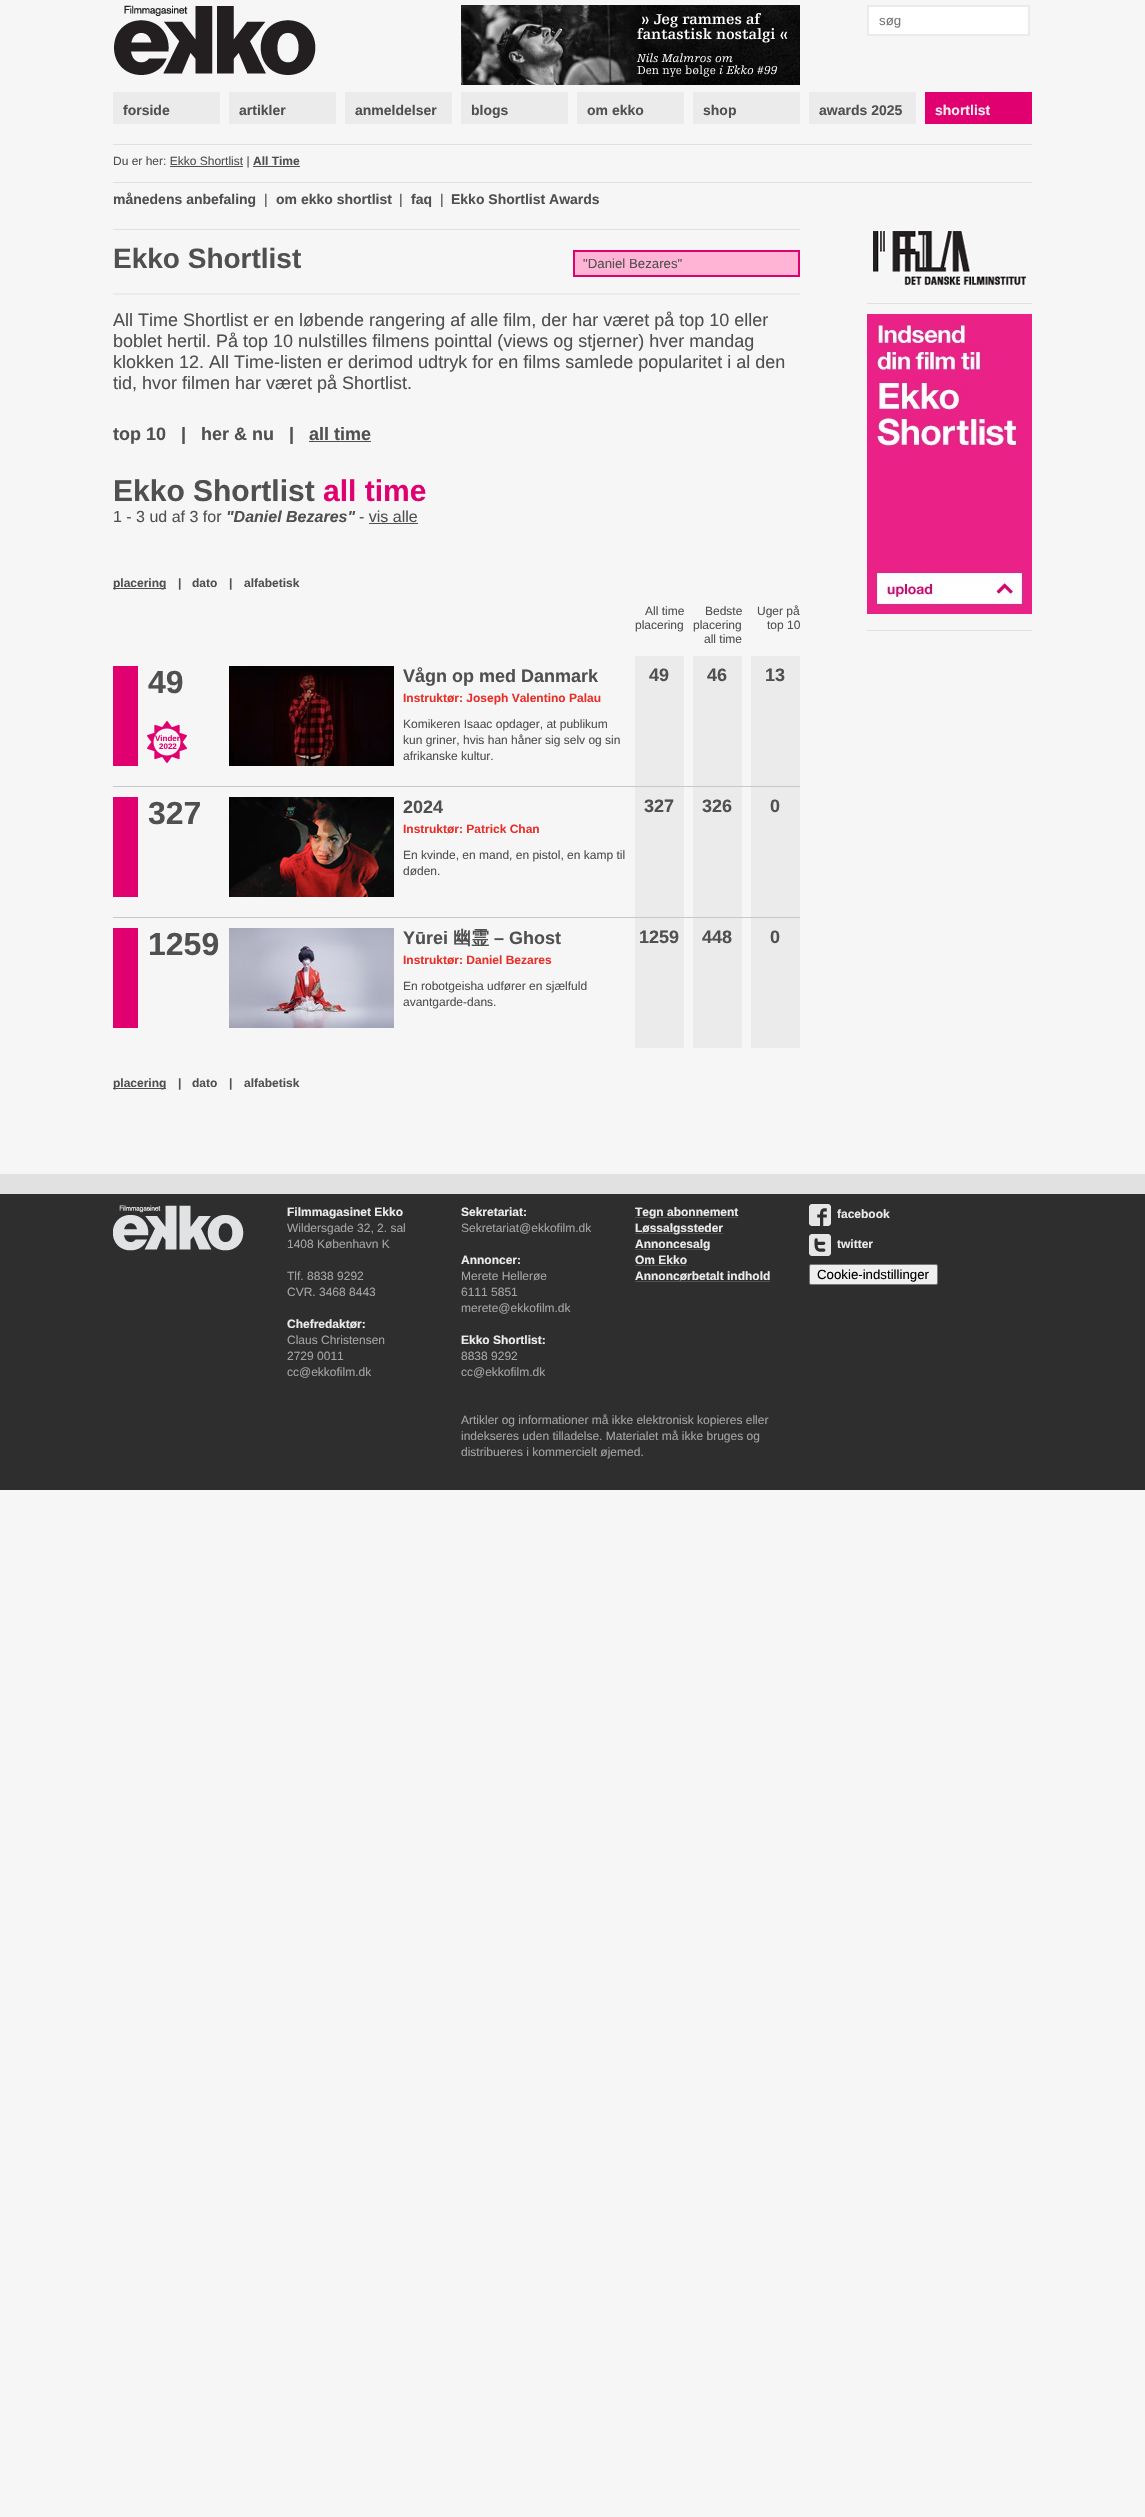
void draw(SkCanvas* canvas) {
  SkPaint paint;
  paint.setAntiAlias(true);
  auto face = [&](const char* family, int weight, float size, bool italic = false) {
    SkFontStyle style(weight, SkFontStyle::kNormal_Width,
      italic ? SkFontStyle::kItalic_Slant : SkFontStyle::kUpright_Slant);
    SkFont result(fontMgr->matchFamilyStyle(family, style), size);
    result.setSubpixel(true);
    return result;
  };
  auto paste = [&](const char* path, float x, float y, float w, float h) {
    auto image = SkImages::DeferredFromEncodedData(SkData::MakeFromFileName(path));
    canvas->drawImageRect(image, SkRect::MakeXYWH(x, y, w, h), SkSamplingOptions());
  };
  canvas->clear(0xfff6f6f6);
  paste("img/1.png", 114, 5, 202, 70);
  paste("img/2.png", 461, 5, 339, 80);
  paint.setColor(0xffffffff);
  canvas->drawRect(SkRect::MakeXYWH(868, 6, 161, 29), paint);
  paint.setStroke(true);
  paint.setStrokeWidth(2);
  paint.setColor(0xffebebeb);
  canvas->drawRect(SkRect::MakeXYWH(868, 6, 161, 29), paint);
  paint.setStroke(false);
  {
    const struct { float x, y, w, h; SkColor color; } items[] = {
      {113, 92, 107, 32, 0xffebebeb},
      {229, 92, 107, 32, 0xffebebeb},
      {345, 92, 107, 32, 0xffebebeb},
      {461, 92, 107, 32, 0xffebebeb},
      {577, 92, 107, 32, 0xffebebeb},
      {693, 92, 107, 32, 0xffebebeb},
      {809, 92, 107, 32, 0xffebebeb},
      {925, 92, 107, 32, 0xffe0006f},
      {113, 144, 919, 1, 0xffe0e0e0},
      {253, 166, 47, 1, 0xff505050},
      {170, 166, 73, 1, 0xff505050},
      {113, 182, 919, 1, 0xffe0e0e0},
      {113, 229, 687, 1, 0xffe0e0e0},
      {113, 293, 687, 2, 0xffebebeb},
    };
    for (auto [x, y, w, h, color] : items) {
      paint.setColor(color);
      canvas->drawRect(SkRect::MakeXYWH(x, y, w, h), paint);
    }
  }
  paint.setColor(0xffffb4d5);
  canvas->drawRect(SkRect::MakeXYWH(574, 251, 225, 25), paint);
  paint.setStroke(true);
  paint.setColor(0xffe0006f);
  canvas->drawRect(SkRect::MakeXYWH(574, 251, 225, 25), paint);
  paint.setStroke(false);
  {
    const struct { float x, y, w, h; SkColor color; } items[] = {
      {309, 441, 62, 1, 0xff505050},
      {369, 523, 49, 1, 0xff505050},
      {113, 588, 53, 1, 0xff505050},
      {113, 666, 25, 100, 0xffe0006f},
    };
    for (auto [x, y, w, h, color] : items) {
      paint.setColor(color);
      canvas->drawRect(SkRect::MakeXYWH(x, y, w, h), paint);
    }
  }
  paste("img/3.png", 147, 721, 40, 42);
  paste("img/4.png", 229, 666, 165, 100);
  {
    const struct { float x, y, w, h; SkColor color; } items[] = {
      {635, 656, 49, 130, 0xffebebeb},
      {693, 656, 49, 130, 0xffebebeb},
      {751, 656, 49, 130, 0xffebebeb},
      {113, 786, 687, 1, 0xffc8c8c8},
      {113, 797, 25, 100, 0xffe0006f},
    };
    for (auto [x, y, w, h, color] : items) {
      paint.setColor(color);
      canvas->drawRect(SkRect::MakeXYWH(x, y, w, h), paint);
    }
  }
  paste("img/5.png", 229, 797, 165, 100);
  {
    const struct { float x, y, w, h; SkColor color; } items[] = {
      {635, 787, 49, 130, 0xffebebeb},
      {693, 787, 49, 130, 0xffebebeb},
      {751, 787, 49, 130, 0xffebebeb},
      {113, 917, 687, 1, 0xffc8c8c8},
      {113, 928, 25, 100, 0xffe0006f},
    };
    for (auto [x, y, w, h, color] : items) {
      paint.setColor(color);
      canvas->drawRect(SkRect::MakeXYWH(x, y, w, h), paint);
    }
  }
  paste("img/6.png", 229, 928, 165, 100);
  {
    const struct { float x, y, w, h; SkColor color; } items[] = {
      {635, 918, 49, 130, 0xffebebeb},
      {693, 918, 49, 130, 0xffebebeb},
      {751, 918, 49, 130, 0xffebebeb},
      {113, 1088, 53, 1, 0xff505050},
    };
    for (auto [x, y, w, h, color] : items) {
      paint.setColor(color);
      canvas->drawRect(SkRect::MakeXYWH(x, y, w, h), paint);
    }
  }
  paste("img/7.png", 873, 230, 153, 55);
  paint.setColor(0xffe0e0e0);
  canvas->drawRect(SkRect::MakeXYWH(867, 303, 165, 1), paint);
  paste("img/8.png", 867, 314, 165, 300);
  {
    const struct { float x, y, w, h; SkColor color; } items[] = {
      {867, 630, 165, 1, 0xffe0e0e0},
      {0, 1194, 1145, 296, 0xff2e2e2e},
      {0, 1174, 1145, 20, 0xffe1e1e1},
    };
    for (auto [x, y, w, h, color] : items) {
      paint.setColor(color);
      canvas->drawRect(SkRect::MakeXYWH(x, y, w, h), paint);
    }
  }
  paste("img/9.png", 113, 1205, 131, 46);
  {
    const struct { float x, y, w, h; SkColor color; } items[] = {
      {635, 1217, 103, 1, 0xff505050},
      {635, 1233, 88, 1, 0xff505050},
      {635, 1249, 75, 1, 0xff505050},
      {635, 1265, 52, 1, 0xff505050},
      {635, 1281, 135, 1, 0xff505050},
    };
    for (auto [x, y, w, h, color] : items) {
      paint.setColor(color);
      canvas->drawRect(SkRect::MakeXYWH(x, y, w, h), paint);
    }
  }
  paste("img/10.png", 809, 1204, 22, 22);
  paste("img/11.png", 809, 1234, 22, 22);
  paint.setColor(0xffefefef);
  canvas->drawRoundRect(SkRect::MakeXYWH(809.5f, 1264.5f, 128, 20), 1.5f, 1.5f, paint);
  paint.setStroke(true);
  paint.setStrokeWidth(1);
  paint.setColor(0xff767676);
  canvas->drawRoundRect(SkRect::MakeXYWH(809.5f, 1264.5f, 128, 20), 1.5f, 1.5f, paint);
  auto f0 = face("Liberation Sans", 400, 13.25f);
  paint.setStroke(false);
  paint.setColor(0xff757575);
  canvas->drawString("søg", 879, 25, f0, paint);
  auto f1 = face("Liberation Sans", 700, 14);
  paint.setColor(0xff505050);
  {
    const struct { const char* s; float x, y; } items[] = {
      {"forside", 123, 115},
      {"artikler", 239, 115},
      {"anmeldelser", 355, 115},
      {"blogs", 471, 115},
      {"om ekko", 587, 115},
      {"shop", 703, 115},
      {"awards 2025", 819, 115},
    };
    for (auto [s, x, y] : items) {
      canvas->drawString(s, x, y, f1, paint);
    }
  }
  paint.setColor(0xffebebeb);
  canvas->drawString("shortlist", 935, 115, f1, paint);
  auto f2 = face("Liberation Sans", 400, 12);
  paint.setColor(0xff505050);
  canvas->drawString("Du er her: Ekko Shortlist |", 113, 165, f2, paint);
  auto f3 = face("Liberation Sans", 700, 12);
  canvas->drawString("All Time", 253, 165, f3, paint);
  canvas->drawString("månedens anbefaling", 113, 204, f1, paint);
  auto f4 = face("Liberation Sans", 400, 14);
  canvas->drawString("|", 264, 204, f4, paint);
  canvas->drawString("om ekko shortlist", 276, 204, f1, paint);
  canvas->drawString("|", 399, 204, f4, paint);
  canvas->drawString("faq", 411, 204, f1, paint);
  canvas->drawString("|", 440, 204, f4, paint);
  canvas->drawString("Ekko Shortlist Awards", 451, 204, f1, paint);
  auto f5 = face("Liberation Sans", 700, 28);
  canvas->drawString("Ekko Shortlist", 113, 268, f5, paint);
  canvas->drawString("\"Daniel Bezares\"", 583, 268, f0, paint);
  auto f6 = face("Liberation Sans", 400, 18);
  {
    const struct { const char* s; float x, y; } items[] = {
      {"All Time Shortlist er en løbende rangering af alle film, der har været på top 10 eller", 113, 326},
      {"boblet hertil. På top 10 nulstilles filmens pointtal (views og stjerner) hver mandag", 113, 347},
      {"klokken 12. All Time-listen er derimod udtryk for en films samlede popularitet i al den", 113, 368},
      {"tid, hvor filmen har været på Shortlist.", 113, 389},
    };
    for (auto [s, x, y] : items) {
      canvas->drawString(s, x, y, f6, paint);
    }
  }
  auto f7 = face("Liberation Sans", 700, 18);
  {
    const struct { const char* s; float x, y; } items[] = {
      {"top 10", 113, 440},
      {"|", 181, 440},
      {"her & nu", 201, 440},
      {"|", 289, 440},
      {"all time", 309, 440},
    };
    for (auto [s, x, y] : items) {
      canvas->drawString(s, x, y, f7, paint);
    }
  }
  auto f8 = face("Liberation Sans", 700, 30);
  canvas->drawString("Ekko Shortlist", 113, 501, f8, paint);
  paint.setColor(0xffe0006f);
  canvas->drawString("all time", 323, 501, f8, paint);
  auto f9 = face("Liberation Sans", 400, 16);
  paint.setColor(0xff505050);
  canvas->drawString("1 - 3 ud af 3 for", 113, 522, f9, paint);
  auto f10 = face("Liberation Sans", 700, 16, true);
  canvas->drawString("\"Daniel Bezares\"", 226, 522, f10, paint);
  canvas->drawString("- vis alle", 359, 522, f9, paint);
  {
    const struct { const char* s; float x, y; } items[] = {
      {"placering", 113, 587},
      {"|", 178, 587},
      {"dato", 192, 587},
      {"|", 229, 587},
      {"alfabetisk", 244, 587},
    };
    for (auto [s, x, y] : items) {
      canvas->drawString(s, x, y, f3, paint);
    }
  }
  {
    const struct { const char* s; float x, y; } items[] = {
      {"All time", 645, 615},
      {"placering", 635, 629},
      {"Bedste", 705, 615},
      {"placering", 693, 629},
      {"all time", 704, 643},
      {"Uger på", 757, 615},
      {"top 10", 767, 629},
    };
    for (auto [s, x, y] : items) {
      canvas->drawString(s, x, y, f2, paint);
    }
  }
  auto f11 = face("Liberation Sans", 700, 32);
  canvas->drawString("49", 148, 693, f11, paint);
  auto f12 = face("Liberation Sans", 700, 8);
  paint.setColor(0xffe0006f);
  canvas->drawString("Vinder", 155, 741, f12, paint);
  canvas->drawString("2022", 159, 749, f12, paint);
  paint.setColor(0xff505050);
  canvas->drawString("Vågn op med Danmark", 403, 682, f7, paint);
  paint.setColor(0xffe73029);
  canvas->drawString("Instruktør: Joseph Valentino Palau", 403, 702, f3, paint);
  paint.setColor(0xff505050);
  {
    const struct { const char* s; float x, y; } items[] = {
      {"Komikeren Isaac opdager, at publikum", 403, 728},
      {"kun griner, hvis han håner sig selv og sin", 403, 744},
      {"afrikanske kultur.", 403, 760},
    };
    for (auto [s, x, y] : items) {
      canvas->drawString(s, x, y, f2, paint);
    }
  }
  {
    const struct { const char* s; float x, y; } items[] = {
      {"49", 649, 681},
      {"46", 707, 681},
      {"13", 765, 681},
    };
    for (auto [s, x, y] : items) {
      canvas->drawString(s, x, y, f7, paint);
    }
  }
  canvas->drawString("327", 148, 824, f11, paint);
  canvas->drawString("2024", 403, 813, f7, paint);
  paint.setColor(0xffe73029);
  canvas->drawString("Instruktør: Patrick Chan", 403, 833, f3, paint);
  paint.setColor(0xff505050);
  canvas->drawString("En kvinde, en mand, en pistol, en kamp til", 403, 859, f2, paint);
  canvas->drawString("døden.", 403, 875, f2, paint);
  {
    const struct { const char* s; float x, y; } items[] = {
      {"327", 644, 812},
      {"326", 702, 812},
      {"0", 770, 812},
    };
    for (auto [s, x, y] : items) {
      canvas->drawString(s, x, y, f7, paint);
    }
  }
  canvas->drawString("1259", 148, 955, f11, paint);
  canvas->drawString("Yūrei", 403, 944, f7, paint);
  auto f13 = face("WenQuanYi Zen Hei", 700, 18);
  canvas->drawString("幽霊", 453, 944, f13, paint);
  canvas->drawString("– Ghost", 494, 944, f7, paint);
  paint.setColor(0xffe73029);
  canvas->drawString("Instruktør: Daniel Bezares", 403, 964, f3, paint);
  paint.setColor(0xff505050);
  canvas->drawString("En robotgeisha udfører en sjælfuld", 403, 990, f2, paint);
  canvas->drawString("avantgarde-dans.", 403, 1006, f2, paint);
  {
    const struct { const char* s; float x, y; } items[] = {
      {"1259", 639, 943},
      {"448", 702, 943},
      {"0", 770, 943},
    };
    for (auto [s, x, y] : items) {
      canvas->drawString(s, x, y, f7, paint);
    }
  }
  {
    const struct { const char* s; float x, y; } items[] = {
      {"placering", 113, 1087},
      {"|", 178, 1087},
      {"dato", 192, 1087},
      {"|", 229, 1087},
      {"alfabetisk", 244, 1087},
    };
    for (auto [s, x, y] : items) {
      canvas->drawString(s, x, y, f3, paint);
    }
  }
  paint.setColor(0xffebebeb);
  canvas->drawString("Filmmagasinet Ekko", 287, 1216, f3, paint);
  paint.setColor(0xffa3a3a3);
  {
    const struct { const char* s; float x, y; } items[] = {
      {"Wildersgade 32, 2. sal", 287, 1232},
      {"1408 København K", 287, 1248},
      {"Tlf. 8838 9292", 287, 1280},
      {"CVR. 3468 8443", 287, 1296},
    };
    for (auto [s, x, y] : items) {
      canvas->drawString(s, x, y, f2, paint);
    }
  }
  paint.setColor(0xffebebeb);
  canvas->drawString("Chefredaktør:", 287, 1328, f3, paint);
  paint.setColor(0xffa3a3a3);
  {
    const struct { const char* s; float x, y; } items[] = {
      {"Claus Christensen", 287, 1344},
      {"2729 0011", 287, 1360},
      {"cc@ekkofilm.dk", 287, 1376},
    };
    for (auto [s, x, y] : items) {
      canvas->drawString(s, x, y, f2, paint);
    }
  }
  paint.setColor(0xffebebeb);
  canvas->drawString("Sekretariat:", 461, 1216, f3, paint);
  paint.setColor(0xffa3a3a3);
  canvas->drawString("Sekretariat@ekkofilm.dk", 461, 1232, f2, paint);
  paint.setColor(0xffebebeb);
  canvas->drawString("Annoncer:", 461, 1264, f3, paint);
  paint.setColor(0xffa3a3a3);
  {
    const struct { const char* s; float x, y; } items[] = {
      {"Merete Hellerøe", 461, 1280},
      {"6111 5851", 461, 1296},
      {"merete@ekkofilm.dk", 461, 1312},
    };
    for (auto [s, x, y] : items) {
      canvas->drawString(s, x, y, f2, paint);
    }
  }
  paint.setColor(0xffebebeb);
  canvas->drawString("Ekko Shortlist:", 461, 1344, f3, paint);
  paint.setColor(0xffa3a3a3);
  canvas->drawString("8838 9292", 461, 1360, f2, paint);
  canvas->drawString("cc@ekkofilm.dk", 461, 1376, f2, paint);
  paint.setColor(0xffebebeb);
  {
    const struct { const char* s; float x, y; } items[] = {
      {"Tegn abonnement", 635, 1216},
      {"Løssalgssteder", 635, 1232},
      {"Annoncesalg", 635, 1248},
      {"Om Ekko", 635, 1264},
      {"Annoncørbetalt indhold", 635, 1280},
      {"facebook", 837, 1218},
      {"twitter", 837, 1248},
    };
    for (auto [s, x, y] : items) {
      canvas->drawString(s, x, y, f3, paint);
    }
  }
  paint.setColor(0xff000000);
  canvas->drawString("Cookie-indstillinger", 817, 1279, f0, paint);
  paint.setColor(0xffa3a3a3);
  {
    const struct { const char* s; float x, y; } items[] = {
      {"Artikler og informationer må ikke elektronisk kopieres eller", 461, 1424},
      {"indekseres uden tilladelse. Materialet må ikke bruges og", 461, 1440},
      {"distribueres i kommercielt øjemed.", 461, 1456},
    };
    for (auto [s, x, y] : items) {
      canvas->drawString(s, x, y, f2, paint);
    }
  }
}
